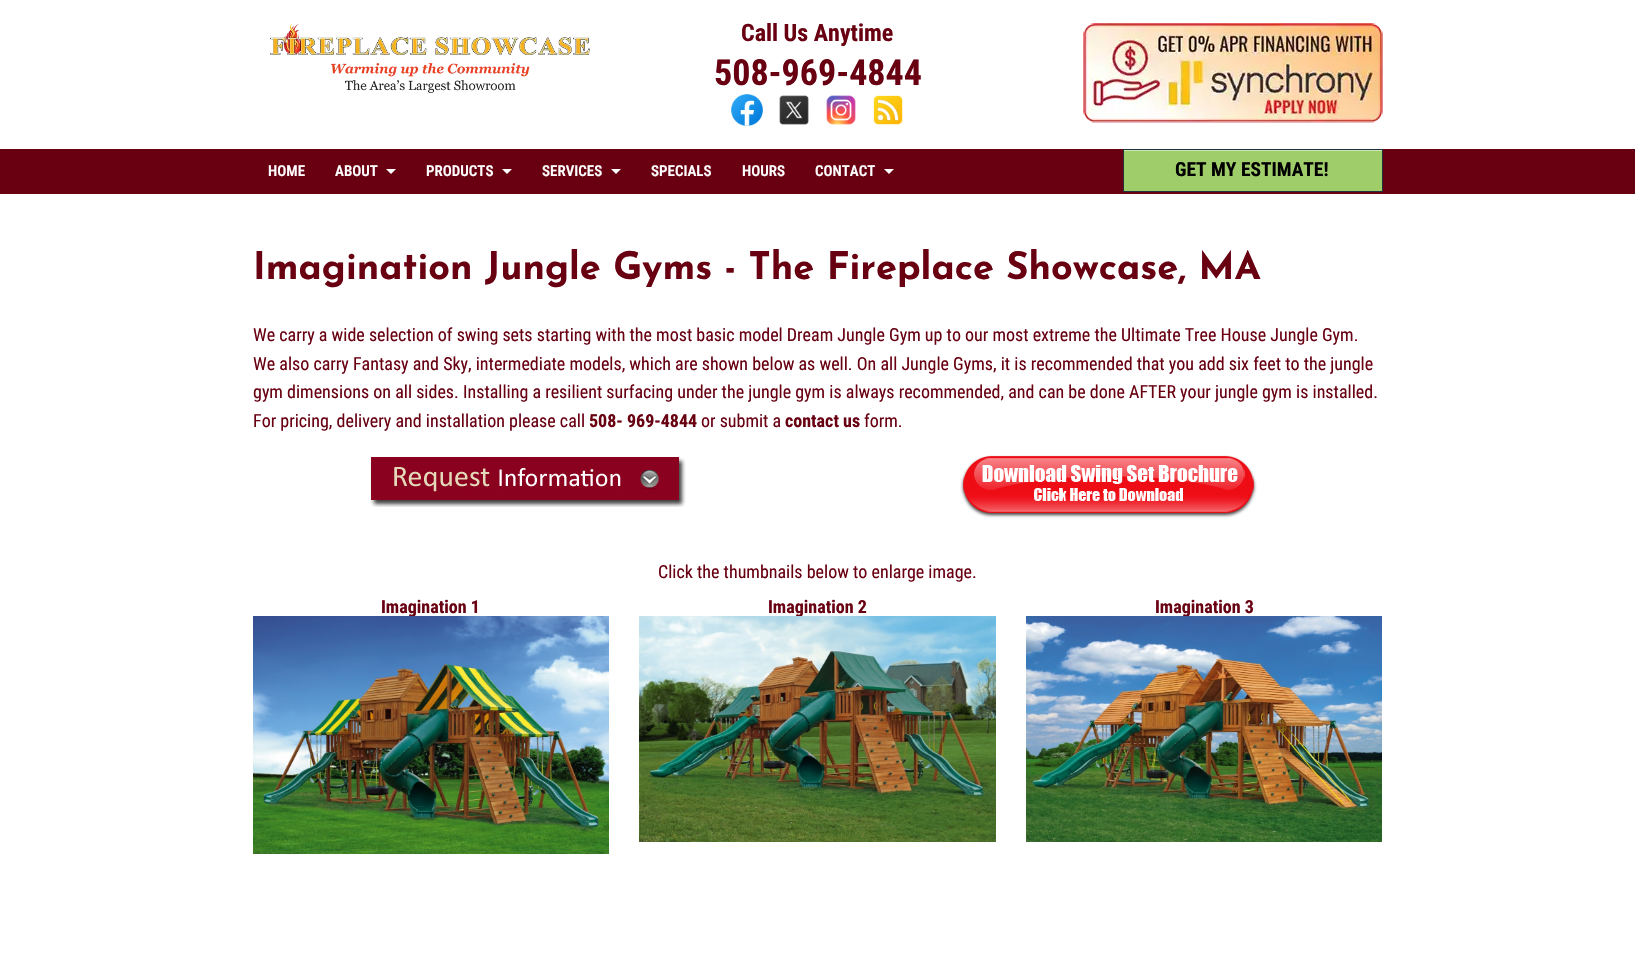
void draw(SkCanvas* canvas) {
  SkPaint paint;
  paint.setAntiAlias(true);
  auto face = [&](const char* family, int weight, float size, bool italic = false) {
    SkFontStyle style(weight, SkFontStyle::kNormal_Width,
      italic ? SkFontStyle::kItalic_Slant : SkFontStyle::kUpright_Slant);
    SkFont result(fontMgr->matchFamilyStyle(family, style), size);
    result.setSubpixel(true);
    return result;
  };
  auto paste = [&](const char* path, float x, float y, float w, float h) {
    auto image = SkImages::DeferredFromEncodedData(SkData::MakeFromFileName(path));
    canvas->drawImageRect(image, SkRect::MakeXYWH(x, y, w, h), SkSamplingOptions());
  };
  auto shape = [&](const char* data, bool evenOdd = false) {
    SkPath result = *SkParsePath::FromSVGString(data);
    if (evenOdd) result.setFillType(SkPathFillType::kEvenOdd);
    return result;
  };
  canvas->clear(0xffffffff);
  paste("img/1.png", 270, 23, 320, 70);
  paste("img/2.png", 731, 94, 32, 32);
  paste("img/3.png", 779, 95, 30, 30);
  paste("img/4.png", 826, 95, 30, 30);
  paste("img/5.png", 873, 95, 30, 30);
  paste("img/6.png", 1083, 23, 300, 100);
  paint.setColor(0xff680011);
  canvas->drawRect(SkRect::MakeXYWH(0, 149, 1635, 45), paint);
  paint.setColor(0xffffffff);
  canvas->drawPath(shape("M386 169H396L391 174Z"), paint);
  canvas->drawPath(shape("M502 169H512L507 174Z"), paint);
  canvas->drawPath(shape("M611 169H621L616 174Z"), paint);
  canvas->drawPath(shape("M884 169H894L889 174Z"), paint);
  paint.setColor(0xff9fcd6a);
  canvas->drawRect(SkRect::MakeXYWH(1124, 151, 258, 40), paint);
  paint.setColor(0xffcfe6b5);
  canvas->drawRect(SkRect::MakeXYWH(1124, 150, 258, 1), paint);
  paint.setStroke(true);
  paint.setStrokeWidth(1);
  paint.setColor(0xff1f313c);
  canvas->drawRect(SkRect::MakeXYWH(1123.5f, 149.5f, 259, 42), paint);
  paste("img/7.png", 370, 457, 316, 50);
  paste("img/8.png", 960, 455, 297, 63);
  auto f0 = face("Roboto Condensed", 700, 24);
  paint.setStroke(false);
  paint.setColor(0xff680011);
  canvas->drawString("Call Us Anytime", 741, 41, f0, paint);
  auto f1 = face("Roboto Condensed", 700, 36);
  canvas->drawString("508-969-4844", 714, 85, f1, paint);
  auto f2 = face("Roboto Condensed", 600, 15);
  paint.setColor(0xffffffff);
  {
    const struct { const char* s; float x, y; } items[] = {
      {"HOME", 268, 176},
      {"ABOUT", 335, 176},
      {"PRODUCTS", 426, 176},
      {"SERVICES", 542, 176},
      {"SPECIALS", 651, 176},
      {"HOURS", 742, 176},
      {"CONTACT", 815, 176},
    };
    for (auto [s, x, y] : items) {
      canvas->drawString(s, x, y, f2, paint);
    }
  }
  auto f3 = face("Roboto Condensed", 700, 19.5f);
  paint.setColor(0xff000000);
  canvas->drawString("GET MY ESTIMATE!", 1175, 176, f3, paint);
  auto f4 = face("Josefin Sans", 700, 38);
  paint.setColor(0xff680011);
  canvas->drawString("Imagination Jungle Gyms - The Fireplace Showcase, MA", 253, 279, f4, paint);
  auto f5 = face("Roboto Condensed", 400, 18);
  {
    const struct { const char* s; float x, y; } items[] = {
      {"We carry a wide selection of swing sets starting with the most basic model Dream Jungle Gym up to our most extreme the Ultimate Tree House Jungle Gym.", 253, 341},
      {"We also carry Fantasy and Sky, intermediate models, which are shown below as well. On all Jungle Gyms, it is recommended that you add six feet to the jungle", 253, 370},
      {"gym dimensions on all sides. Installing a resilient surfacing under the jungle gym is always recommended, and can be done AFTER your jungle gym is installed.", 253, 398},
      {"For pricing, delivery and installation please call", 253, 427},
    };
    for (auto [s, x, y] : items) {
      canvas->drawString(s, x, y, f5, paint);
    }
  }
  auto f6 = face("Roboto Condensed", 700, 18);
  canvas->drawString("508- 969-4844", 589, 427, f6, paint);
  canvas->drawString("or submit a", 701, 427, f5, paint);
  canvas->drawString("contact us", 785, 427, f6, paint);
  canvas->drawString("form.", 864, 427, f5, paint);
  canvas->drawString("Click the thumbnails below to enlarge image.", 658, 578, f5, paint);
  canvas->drawString("Imagination 1", 381, 613, f6, paint);
  paste("img/9.png", 253, 616, 356, 238);
  canvas->drawString("Imagination 2", 768, 613, f6, paint);
  paste("img/10.png", 639, 616, 357, 226);
  canvas->drawString("Imagination 3", 1155, 613, f6, paint);
  paste("img/11.png", 1026, 616, 356, 226);
}
